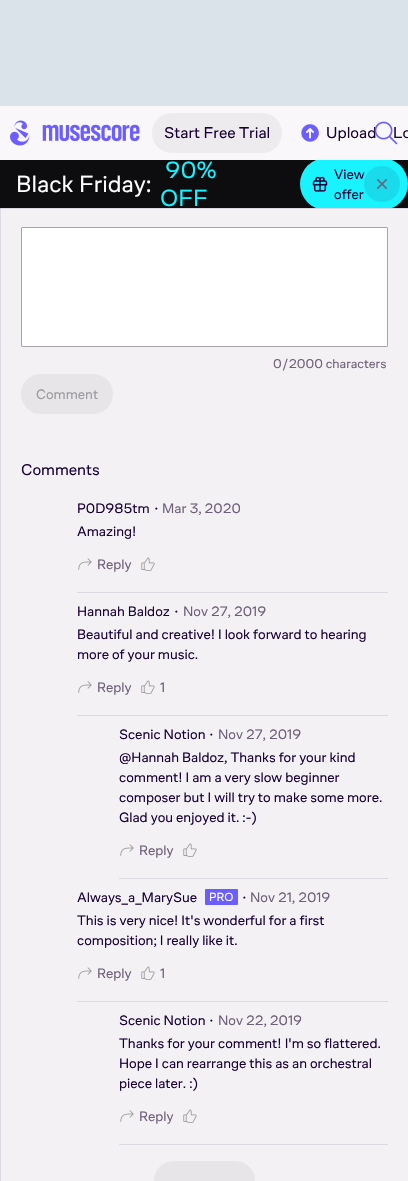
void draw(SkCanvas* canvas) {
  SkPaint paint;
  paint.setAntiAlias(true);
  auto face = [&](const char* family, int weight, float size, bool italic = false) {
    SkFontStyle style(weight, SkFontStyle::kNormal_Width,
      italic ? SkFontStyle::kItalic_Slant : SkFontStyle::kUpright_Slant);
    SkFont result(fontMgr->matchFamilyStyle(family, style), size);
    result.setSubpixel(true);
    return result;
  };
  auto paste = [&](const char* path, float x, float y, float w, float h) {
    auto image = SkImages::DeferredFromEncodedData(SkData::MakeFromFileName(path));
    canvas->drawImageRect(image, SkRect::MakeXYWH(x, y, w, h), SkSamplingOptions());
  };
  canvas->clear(0xfff3f1f4);
  {
    const struct { float x, y, w, h; SkColor color; } items[] = {
      {0, 208, 1, 973, 0xffddd9e1},
      {0, 208, 408, 1, 0x1a180036},
      {0, 0, 408, 106, 0xffdae3e9},
      {0, 106, 408, 54, 0xfff9f7fa},
    };
    for (auto [x, y, w, h, color] : items) {
      paint.setColor(color);
      canvas->drawRect(SkRect::MakeXYWH(x, y, w, h), paint);
    }
  }
  paste("img/1.png", 10, 120, 130, 26);
  paint.setColor(0xffedebee);
  canvas->drawRoundRect(SkRect::MakeXYWH(152, 113, 130, 40), 20, 20, paint);
  paste("img/3.png", 301, 124, 18, 18);
  paint.setColor(0xff0d0d10);
  canvas->drawRect(SkRect::MakeXYWH(0, 160, 408, 48), paint);
  canvas->save();
  canvas->clipRect(SkRect::MakeXYWH(0, 160, 408, 48));
  paint.setColor(0xff19f3ff);
  canvas->drawRoundRect(SkRect::MakeXYWH(300, 158, 108, 52), 26, 26, paint);
  canvas->restore();
  paste("img/4.png", 312, 176, 16, 16);
  paint.setColor(0xffffffff);
  canvas->drawRoundRect(SkRect::MakeXYWH(21.5f, 227.5f, 366, 119), 0.5f, 0.5f, paint);
  paint.setStroke(true);
  paint.setStrokeWidth(1);
  paint.setColor(0xffa7a4a9);
  canvas->drawRoundRect(SkRect::MakeXYWH(21.5f, 227.5f, 366, 119), 0.5f, 0.5f, paint);
  paint.setStroke(false);
  paint.setColor(0xffe7e5e8);
  canvas->drawRoundRect(SkRect::MakeXYWH(21, 374, 92, 40), 20, 20, paint);
  paste("img/6.png", 78, 558, 14, 12);
  paste("img/7.png", 141, 557, 14, 14);
  paint.setColor(0xffddd9e1);
  canvas->drawRect(SkRect::MakeXYWH(77, 592, 311, 1), paint);
  paste("img/6.png", 78, 681, 14, 12);
  paste("img/7.png", 141, 680, 14, 14);
  canvas->drawRect(SkRect::MakeXYWH(77, 715, 311, 1), paint);
  paste("img/6.png", 120, 844, 14, 12);
  paste("img/7.png", 183, 843, 14, 14);
  canvas->drawRect(SkRect::MakeXYWH(119, 878, 269, 1), paint);
  paint.setColor(0xff6b5dfe);
  canvas->drawRoundRect(SkRect::MakeXYWH(205, 889, 33, 16), 1, 1, paint);
  paste("img/6.png", 78, 967, 14, 12);
  paste("img/7.png", 141, 966, 14, 14);
  paint.setColor(0xffddd9e1);
  canvas->drawRect(SkRect::MakeXYWH(77, 1001, 311, 1), paint);
  paste("img/6.png", 120, 1110, 14, 12);
  paste("img/7.png", 183, 1109, 14, 14);
  canvas->drawRect(SkRect::MakeXYWH(119, 1144, 269, 1), paint);
  paint.setColor(0xffe7e5e8);
  canvas->drawRoundRect(SkRect::MakeXYWH(154, 1161, 101, 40), 20, 20, paint);
  auto f0 = face("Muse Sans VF", 400, 16);
  paint.setColor(0xff180036);
  {
    const struct { const char* s; float x, y; } items[] = {
      {"Start Free Trial", 164, 138},
      {"Upload", 326, 138},
      {"Lo", 393, 138},
    };
    for (auto [s, x, y] : items) {
      canvas->drawString(s, x, y, f0, paint);
    }
  }
  paste("img/2.png", 374, 121, 24, 24);
  auto f1 = face("Muse Sans VF", 400, 24);
  paint.setColor(0xffffffff);
  canvas->drawString("Black", 16, 192, f1, paint);
  canvas->drawString("Friday:", 79, 192, f1, paint);
  paint.setColor(0xff19f3ff);
  canvas->drawString("90%", 165, 178, f1, paint);
  canvas->drawString("OFF", 160, 206, f1, paint);
  auto f2 = face("Muse Sans VF", 400, 14);
  paint.setColor(0xff180036);
  canvas->drawString("View", 334, 179, f2, paint);
  canvas->drawString("offer", 334, 199, f2, paint);
  paint.setColor(0xff19dbeb);
  canvas->drawCircle(382, 184, 18, paint);
  paste("img/5.png", 376, 178, 12, 12);
  auto f3 = face("Muse Sans VF", 400, 13);
  paint.setColor(0xff6e5f79);
  canvas->drawString("0/2000 characters", 273, 368, f3, paint);
  paint.setColor(0xff9b989d);
  canvas->drawString("Comment", 36, 399, f2, paint);
  paint.setColor(0xff180036);
  canvas->drawString("Comments", 21, 475, f0, paint);
  canvas->drawString("P0D985tm", 77, 513, f2, paint);
  canvas->drawString("·", 154, 514, f0, paint);
  paint.setColor(0xff6e5f79);
  canvas->drawString("Mar 3, 2020", 162, 513, f2, paint);
  paint.setColor(0xff180036);
  canvas->drawString("Amazing!", 77, 536, f2, paint);
  paint.setColor(0xff6e5f79);
  canvas->drawString("Reply", 97, 569, f2, paint);
  paint.setColor(0xff180036);
  canvas->drawString("Hannah Baldoz", 77, 616, f2, paint);
  canvas->drawString("·", 174, 617, f0, paint);
  paint.setColor(0xff6e5f79);
  canvas->drawString("Nov 27, 2019", 183, 616, f2, paint);
  paint.setColor(0xff180036);
  canvas->drawString("Beautiful and creative! I look forward to hearing", 77, 639, f2, paint);
  canvas->drawString("more of your music.", 77, 659, f2, paint);
  paint.setColor(0xff6e5f79);
  canvas->drawString("Reply", 97, 692, f2, paint);
  canvas->drawString("1", 160, 692, f2, paint);
  paint.setColor(0xff180036);
  canvas->drawString("Scenic Notion", 119, 739, f2, paint);
  canvas->drawString("·", 209, 740, f0, paint);
  paint.setColor(0xff6e5f79);
  canvas->drawString("Nov 27, 2019", 218, 739, f2, paint);
  paint.setColor(0xff180036);
  {
    const struct { const char* s; float x, y; } items[] = {
      {"@Hannah Baldoz, Thanks for your kind", 119, 762},
      {"comment! I am a very slow beginner", 119, 782},
      {"composer but I will try to make some more.", 119, 802},
      {"Glad you enjoyed it. :-)", 119, 822},
    };
    for (auto [s, x, y] : items) {
      canvas->drawString(s, x, y, f2, paint);
    }
  }
  paint.setColor(0xff6e5f79);
  canvas->drawString("Reply", 139, 855, f2, paint);
  paint.setColor(0xff180036);
  canvas->drawString("Always_a_MarySue", 77, 902, f2, paint);
  auto f4 = face("Muse Sans VF", 400, 12);
  paint.setColor(0xffffffff);
  canvas->drawString("PRO", 209, 901, f4, paint);
  paint.setColor(0xff180036);
  canvas->drawString("·", 242, 903, f0, paint);
  paint.setColor(0xff6e5f79);
  canvas->drawString("Nov 21, 2019", 250, 902, f2, paint);
  paint.setColor(0xff180036);
  canvas->drawString("This is very nice! It's wonderful for a first", 77, 925, f2, paint);
  canvas->drawString("composition; I really like it.", 77, 945, f2, paint);
  paint.setColor(0xff6e5f79);
  canvas->drawString("Reply", 97, 978, f2, paint);
  canvas->drawString("1", 160, 978, f2, paint);
  paint.setColor(0xff180036);
  canvas->drawString("Scenic Notion", 119, 1025, f2, paint);
  canvas->drawString("·", 209, 1026, f0, paint);
  paint.setColor(0xff6e5f79);
  canvas->drawString("Nov 22, 2019", 218, 1025, f2, paint);
  paint.setColor(0xff180036);
  {
    const struct { const char* s; float x, y; } items[] = {
      {"Thanks for your comment! I'm so flattered.", 119, 1048},
      {"Hope I can rearrange this as an orchestral", 119, 1068},
      {"piece later. :)", 119, 1088},
    };
    for (auto [s, x, y] : items) {
      canvas->drawString(s, x, y, f2, paint);
    }
  }
  paint.setColor(0xff6e5f79);
  canvas->drawString("Reply", 139, 1121, f2, paint);
}
